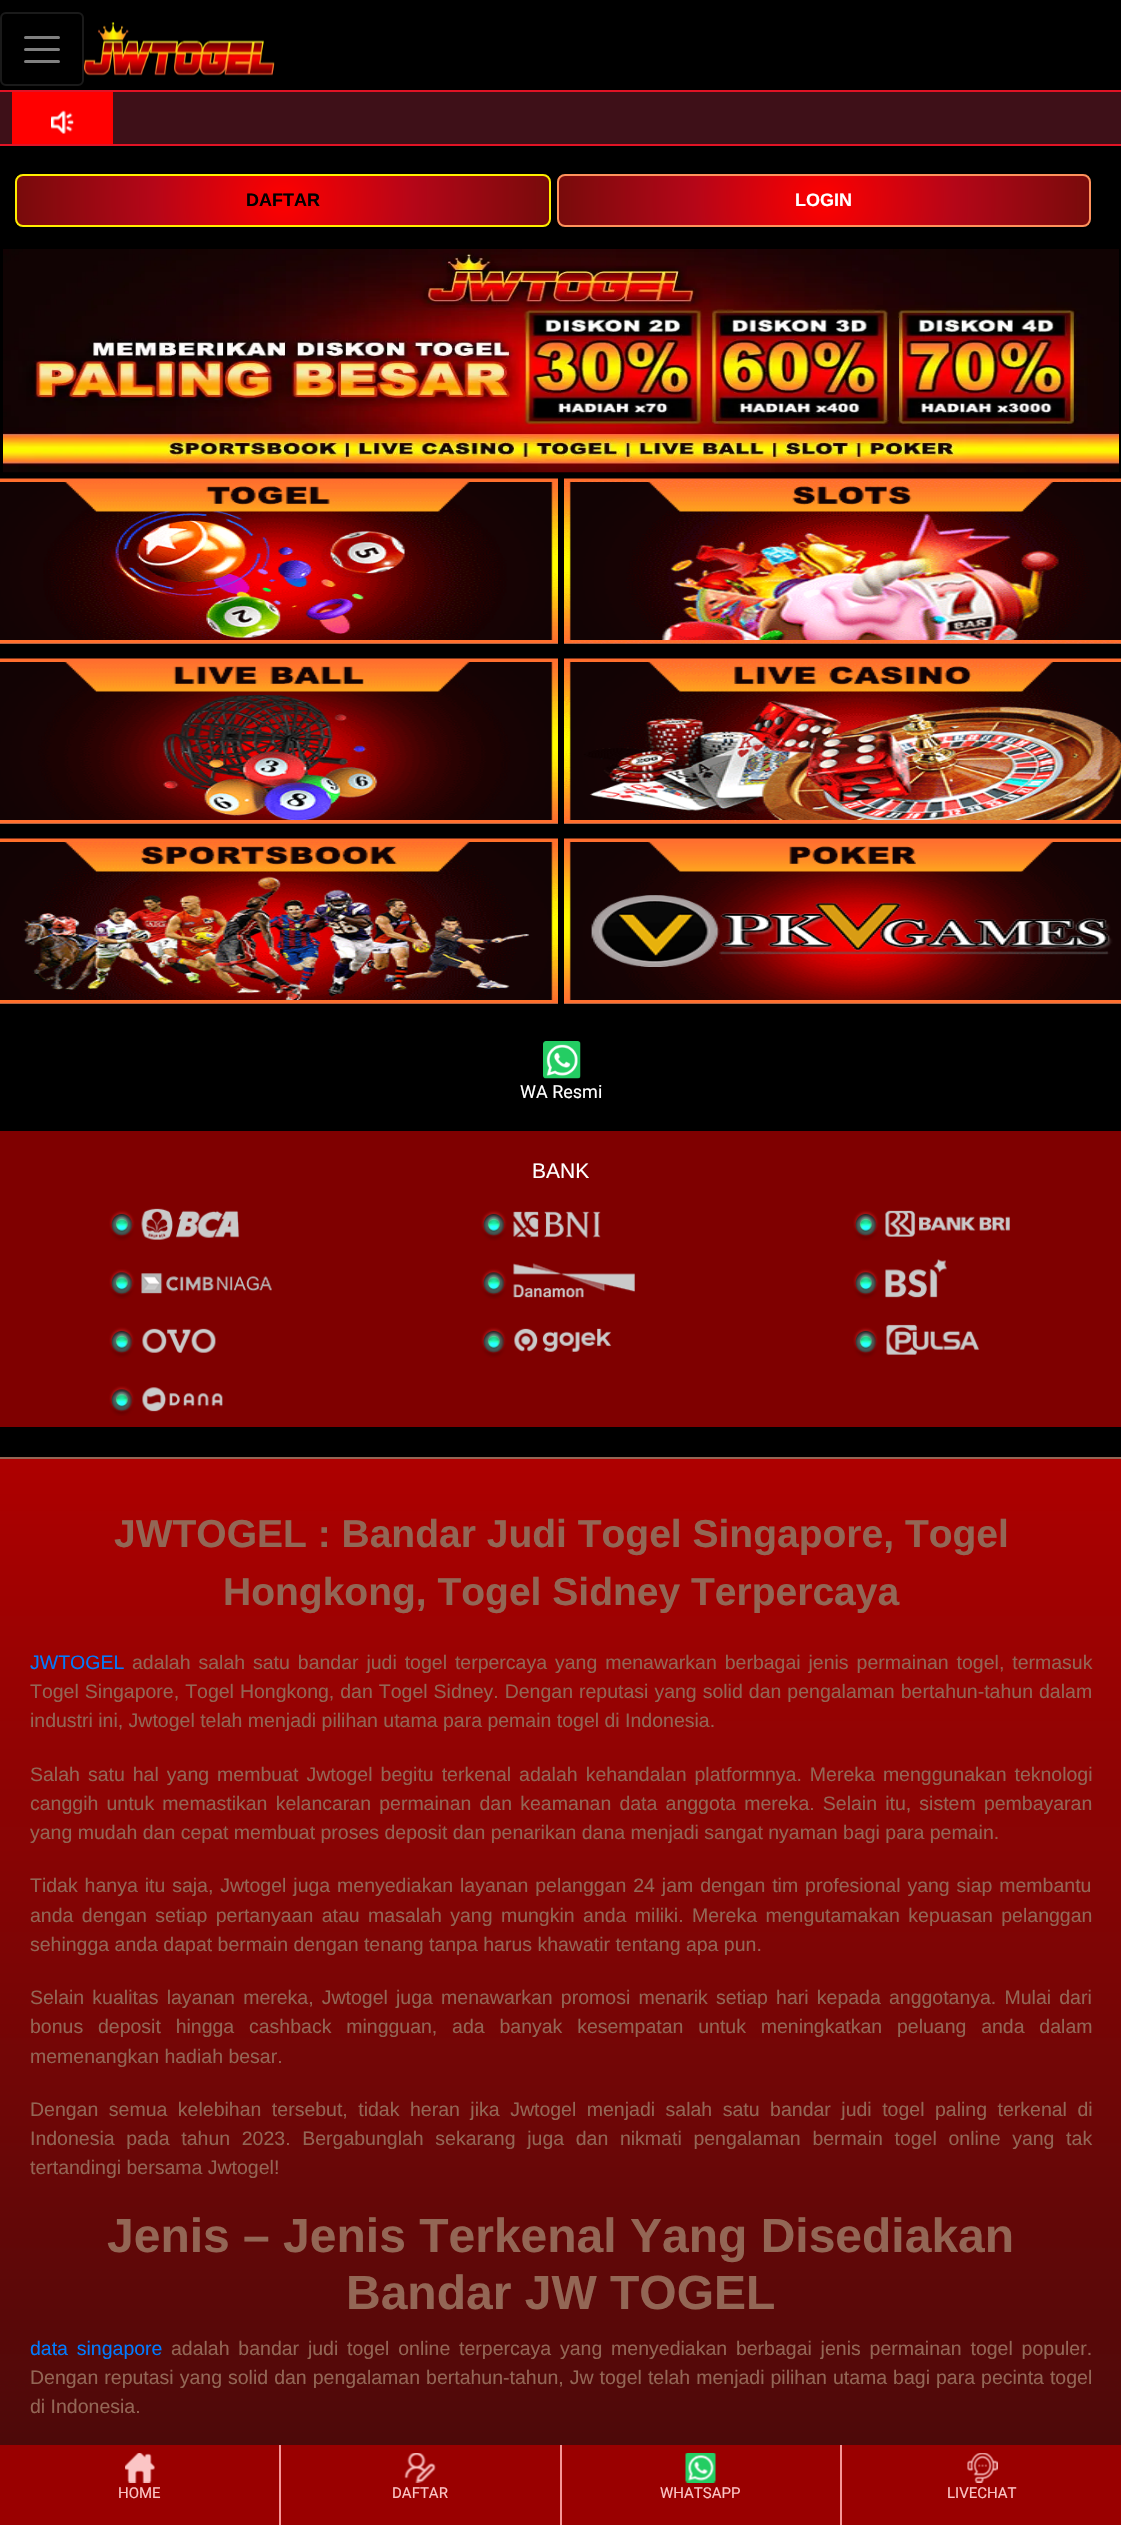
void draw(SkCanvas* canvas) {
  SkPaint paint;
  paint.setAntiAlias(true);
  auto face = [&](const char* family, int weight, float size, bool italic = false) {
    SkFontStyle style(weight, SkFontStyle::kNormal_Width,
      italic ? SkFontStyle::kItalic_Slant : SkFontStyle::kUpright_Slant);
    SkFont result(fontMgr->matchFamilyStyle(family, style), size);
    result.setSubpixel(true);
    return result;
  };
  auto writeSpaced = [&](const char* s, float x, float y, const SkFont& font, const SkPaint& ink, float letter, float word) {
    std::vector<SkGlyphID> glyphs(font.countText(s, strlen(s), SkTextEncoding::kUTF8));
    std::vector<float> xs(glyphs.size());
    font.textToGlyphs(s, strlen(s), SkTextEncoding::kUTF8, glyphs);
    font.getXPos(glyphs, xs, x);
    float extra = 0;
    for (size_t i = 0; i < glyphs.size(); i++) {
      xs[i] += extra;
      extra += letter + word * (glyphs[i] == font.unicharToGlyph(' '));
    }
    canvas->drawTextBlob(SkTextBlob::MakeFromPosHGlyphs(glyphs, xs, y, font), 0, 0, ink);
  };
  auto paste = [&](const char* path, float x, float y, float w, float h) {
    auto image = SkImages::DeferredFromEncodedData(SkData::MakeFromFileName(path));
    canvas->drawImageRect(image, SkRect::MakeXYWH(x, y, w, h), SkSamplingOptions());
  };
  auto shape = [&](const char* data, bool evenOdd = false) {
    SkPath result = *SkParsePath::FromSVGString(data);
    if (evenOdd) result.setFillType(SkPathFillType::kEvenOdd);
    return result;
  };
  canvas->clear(0xff000000);
  paint.setStroke(true);
  paint.setStrokeWidth(2);
  paint.setColor(0xff1a1a1a);
  canvas->drawRoundRect(SkRect::MakeXYWH(1, 13, 82, 72), 5, 5, paint);
  paint.setStrokeWidth(3);
  paint.setStrokeCap(SkPaint::kRound_Cap);
  paint.setColor(0xff808080);
  canvas->drawPath(shape("M25.5 37.5H58.5M25.5 49.5H58.5M25.5 61.5H58.5"), paint);
  paste("img/1.png", 84, 22, 191, 54);
  paint.setStroke(false);
  {
    const struct { float x, y, w, h; SkColor color; } items[] = {
      {0, 90, 1121, 2, 0xffe21325},
      {0, 144, 1121, 2, 0xffe21325},
      {0, 92, 1121, 52, 0xff3e1018},
      {12, 92, 101, 52, 0xffff0000},
    };
    for (auto [x, y, w, h, color] : items) {
      paint.setColor(color);
      canvas->drawRect(SkRect::MakeXYWH(x, y, w, h), paint);
    }
  }
  paste("img/2.png", 51, 110, 23, 24);
  canvas->save();
  canvas->clipPath(shape("M23 174H543C547.5 174 551 177.5 551 182V219C551 223.5 547.5 227 543 227H23C18.5 227 15 223.5 15 219V182C15 177.5 18.5 174 23 174Z"), true);
  {
    const SkColor colors[] = {0xfffe0000, 0xffb50618, 0xff780b0b};
    const float stops[] = {0, 0.49f, 1};
    paint.setShader(SkGradientShader::MakeRadial({283, 200}, 267, colors, stops, 3, SkTileMode::kClamp));
    paint.setAlpha(255);
  }
  canvas->drawRect(SkRect::MakeXYWH(17, 176, 532, 49), paint);
  canvas->restore();
  paint.setStroke(true);
  paint.setStrokeWidth(2);
  paint.setStrokeCap(SkPaint::kButt_Cap);
  paint.setShader(nullptr);
  paint.setColor(0xffffed00);
  canvas->drawRoundRect(SkRect::MakeXYWH(16, 175, 534, 51), 7, 7, paint);
  canvas->save();
  canvas->clipPath(shape("M565 174H1083C1087.5 174 1091 177.5 1091 182V219C1091 223.5 1087.5 227 1083 227H565C560.5 227 557 223.5 557 219V182C557 177.5 560.5 174 565 174Z"), true);
  paint.setStroke(false);
  {
    const SkColor colors[] = {0xfffe0000, 0xffb50618, 0xff780b0b};
    const float stops[] = {0, 0.49f, 1};
    paint.setShader(SkGradientShader::MakeRadial({824, 200}, 267, colors, stops, 3, SkTileMode::kClamp));
    paint.setAlpha(255);
  }
  canvas->drawRect(SkRect::MakeXYWH(558, 176, 531, 49), paint);
  canvas->restore();
  paint.setStroke(true);
  paint.setShader(nullptr);
  paint.setColor(0xffff925c);
  canvas->drawRoundRect(SkRect::MakeXYWH(558, 175, 532, 51), 7, 7, paint);
  paste("img/3.png", 3, 249, 1116, 224);
  paint.setStroke(false);
  paint.setColor(0xff555656);
  canvas->drawRect(SkRect::MakeXYWH(0, 643, 558, 1), paint);
  paste("img/4.png", 0, 478, 558, 166);
  canvas->drawRect(SkRect::MakeXYWH(564, 643, 557, 1), paint);
  paste("img/5.png", 564, 478, 557, 166);
  canvas->drawRect(SkRect::MakeXYWH(0, 823, 558, 1), paint);
  paste("img/6.png", 0, 658, 558, 166);
  canvas->drawRect(SkRect::MakeXYWH(564, 823, 557, 1), paint);
  paste("img/7.png", 564, 658, 557, 166);
  canvas->drawRect(SkRect::MakeXYWH(0, 1003, 558, 1), paint);
  paste("img/8.png", 0, 838, 558, 166);
  canvas->drawRect(SkRect::MakeXYWH(564, 1003, 557, 1), paint);
  paste("img/9.png", 564, 838, 557, 166);
  paste("img/10.png", 543, 1041, 38, 38);
  paint.setColor(0xff7f0000);
  canvas->drawRect(SkRect::MakeXYWH(0, 1131, 1121, 296), paint);
  paste("img/11.png", 109, 1208, 131, 33);
  paste("img/12.png", 481, 1210, 120, 31);
  paste("img/13.png", 853, 1210, 157, 31);
  paste("img/14.png", 109, 1269, 163, 30);
  paste("img/15.png", 481, 1263, 154, 36);
  paste("img/16.png", 853, 1259, 94, 40);
  paste("img/17.png", 109, 1327, 107, 31);
  paste("img/18.png", 481, 1327, 131, 31);
  paste("img/19.png", 853, 1324, 127, 34);
  paste("img/20.png", 109, 1386, 114, 30);
  {
    const SkColor colors[] = {0xffae0000, 0xff320c0c};
    const float stops[] = {0, 0.4f};
    const SkPoint ends[] = {{561, 1458}, {561, 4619}};
    paint.setShader(SkGradientShader::MakeLinear(ends, colors, stops, 2, SkTileMode::kClamp));
    paint.setAlpha(255);
  }
  canvas->drawRect(SkRect::MakeXYWH(0, 1459, 1121, 986), paint);
  paint.setShader(nullptr);
  {
    const struct { float x, y, w, h; SkColor color; } items[] = {
      {0, 1457, 1121, 2, 0xff936655},
      {0, 2445, 1121, 80, 0xff9a0000},
      {279, 2445, 2, 80, 0xfff59696},
    };
    for (auto [x, y, w, h, color] : items) {
      paint.setColor(color);
      canvas->drawRect(SkRect::MakeXYWH(x, y, w, h), paint);
    }
  }
  paste("img/21.png", 125, 2453, 30, 30);
  canvas->drawRect(SkRect::MakeXYWH(560, 2445, 2, 80), paint);
  paste("img/22.png", 404, 2453, 32, 30);
  canvas->drawRect(SkRect::MakeXYWH(840, 2445, 2, 80), paint);
  paste("img/23.png", 685, 2453, 31, 30);
  paste("img/24.png", 967, 2453, 31, 30);
  auto f0 = face("Liberation Sans", 700, 18);
  paint.setColor(0xff000000);
  canvas->drawString("DAFTAR", 246, 206, f0, paint);
  paint.setColor(0xffffffff);
  canvas->drawString("LOGIN", 795, 206, f0, paint);
  auto f1 = face("Roboto", 400, 18);
  canvas->drawString("WA Resmi", 520, 1098, f1, paint);
  auto f2 = face("Liberation Sans", 400, 21);
  canvas->drawString("BANK", 532, 1178, f2, paint);
  auto f3 = face("Liberation Sans", 700, 39);
  paint.setColor(0xff936655);
  canvas->drawString("JWTOGEL : Bandar Judi Togel Singapore, Togel", 114, 1547, f3, paint);
  canvas->drawString("Hongkong, Togel Sidney Terpercaya", 223, 1605, f3, paint);
  auto f4 = face("Liberation Sans", 400, 19.5f);
  paint.setColor(0xff007bff);
  canvas->drawString("JWTOGEL", 30, 1669, f4, paint);
  paint.setColor(0xff936655);
  writeSpaced("adalah salah satu bandar judi togel terpercaya yang menawarkan berbagai jenis permainan togel, termasuk", 132, 1669, f4, paint, 0, 2.5f);
  writeSpaced("Togel Singapore, Togel Hongkong, dan Togel Sidney. Dengan reputasi yang solid dan pengalaman bertahun-tahun dalam", 30, 1698, f4, paint, 0, 0.6f);
  canvas->drawString("industri ini, Jwtogel telah menjadi pilihan utama para pemain togel di Indonesia.", 30, 1727, f4, paint);
  writeSpaced("Salah satu hal yang membuat Jwtogel begitu terkenal adalah kehandalan platformnya. Mereka menggunakan teknologi", 30, 1781, f4, paint, 0, 2.6f);
  writeSpaced("canggih untuk memastikan kelancaran permainan dan keamanan data anggota mereka. Selain itu, sistem pembayaran", 30, 1810, f4, paint, 0, 2.75f);
  canvas->drawString("yang mudah dan cepat membuat proses deposit dan penarikan dana menjadi sangat nyaman bagi para pemain.", 30, 1839, f4, paint);
  writeSpaced("Tidak hanya itu saja, Jwtogel juga menyediakan layanan pelanggan 24 jam dengan tim profesional yang siap membantu", 30, 1892, f4, paint, 0, 1.5f);
  writeSpaced("anda dengan setiap pertanyaan atau masalah yang mungkin anda miliki. Mereka mengutamakan kepuasan pelanggan", 30, 1922, f4, paint, 0, 3);
  canvas->drawString("sehingga anda dapat bermain dengan tenang tanpa harus khawatir tentang apa pun.", 30, 1951, f4, paint);
  writeSpaced("Selain kualitas layanan mereka, Jwtogel juga menawarkan promosi menarik setiap hari kepada anggotanya. Mulai dari", 30, 2004, f4, paint, 0, 2.75f);
  writeSpaced("bonus deposit hingga cashback mingguan, ada banyak kesempatan untuk meningkatkan peluang anda dalam", 30, 2033, f4, paint, 0, 9.4f);
  canvas->drawString("memenangkan hadiah besar.", 30, 2063, f4, paint);
  writeSpaced("Dengan semua kelebihan tersebut, tidak heran jika Jwtogel menjadi salah satu bandar judi togel paling terkenal di", 30, 2116, f4, paint, 0, 5.1f);
  writeSpaced("Indonesia pada tahun 2023. Bergabunglah sekarang juga dan nikmati pengalaman bermain togel online yang tak", 30, 2145, f4, paint, 0, 6.25f);
  canvas->drawString("tertandingi bersama Jwtogel!", 30, 2174, f4, paint);
  auto f5 = face("Liberation Sans", 700, 48);
  canvas->drawString("Jenis – Jenis Terkenal Yang Disediakan", 107, 2252, f5, paint);
  canvas->drawString("Bandar JW TOGEL", 346, 2309, f5, paint);
  paint.setColor(0xff007bff);
  writeSpaced("data singapore", 30, 2355, f4, paint, 0, 3.4f);
  paint.setColor(0xff936655);
  writeSpaced("adalah bandar judi togel online terpercaya yang menyediakan berbagai jenis permainan togel populer.", 171, 2355, f4, paint, 0, 3.4f);
  writeSpaced("Dengan reputasi yang solid dan pengalaman bertahun-tahun, Jw togel telah menjadi pilihan utama bagi para pecinta togel", 30, 2384, f4, paint, 0, 0.6f);
  canvas->drawString("di Indonesia.", 30, 2413, f4, paint);
  auto f6 = face("Roboto", 400, 15);
  paint.setColor(0xfffbc5c5);
  {
    const struct { const char* s; float x, y; } items[] = {
      {"HOME", 118, 2498},
      {"DAFTAR", 392, 2498},
      {"WHATSAPP", 660, 2498},
      {"LIVECHAT", 947, 2498},
    };
    for (auto [s, x, y] : items) {
      canvas->drawString(s, x, y, f6, paint);
    }
  }
}
